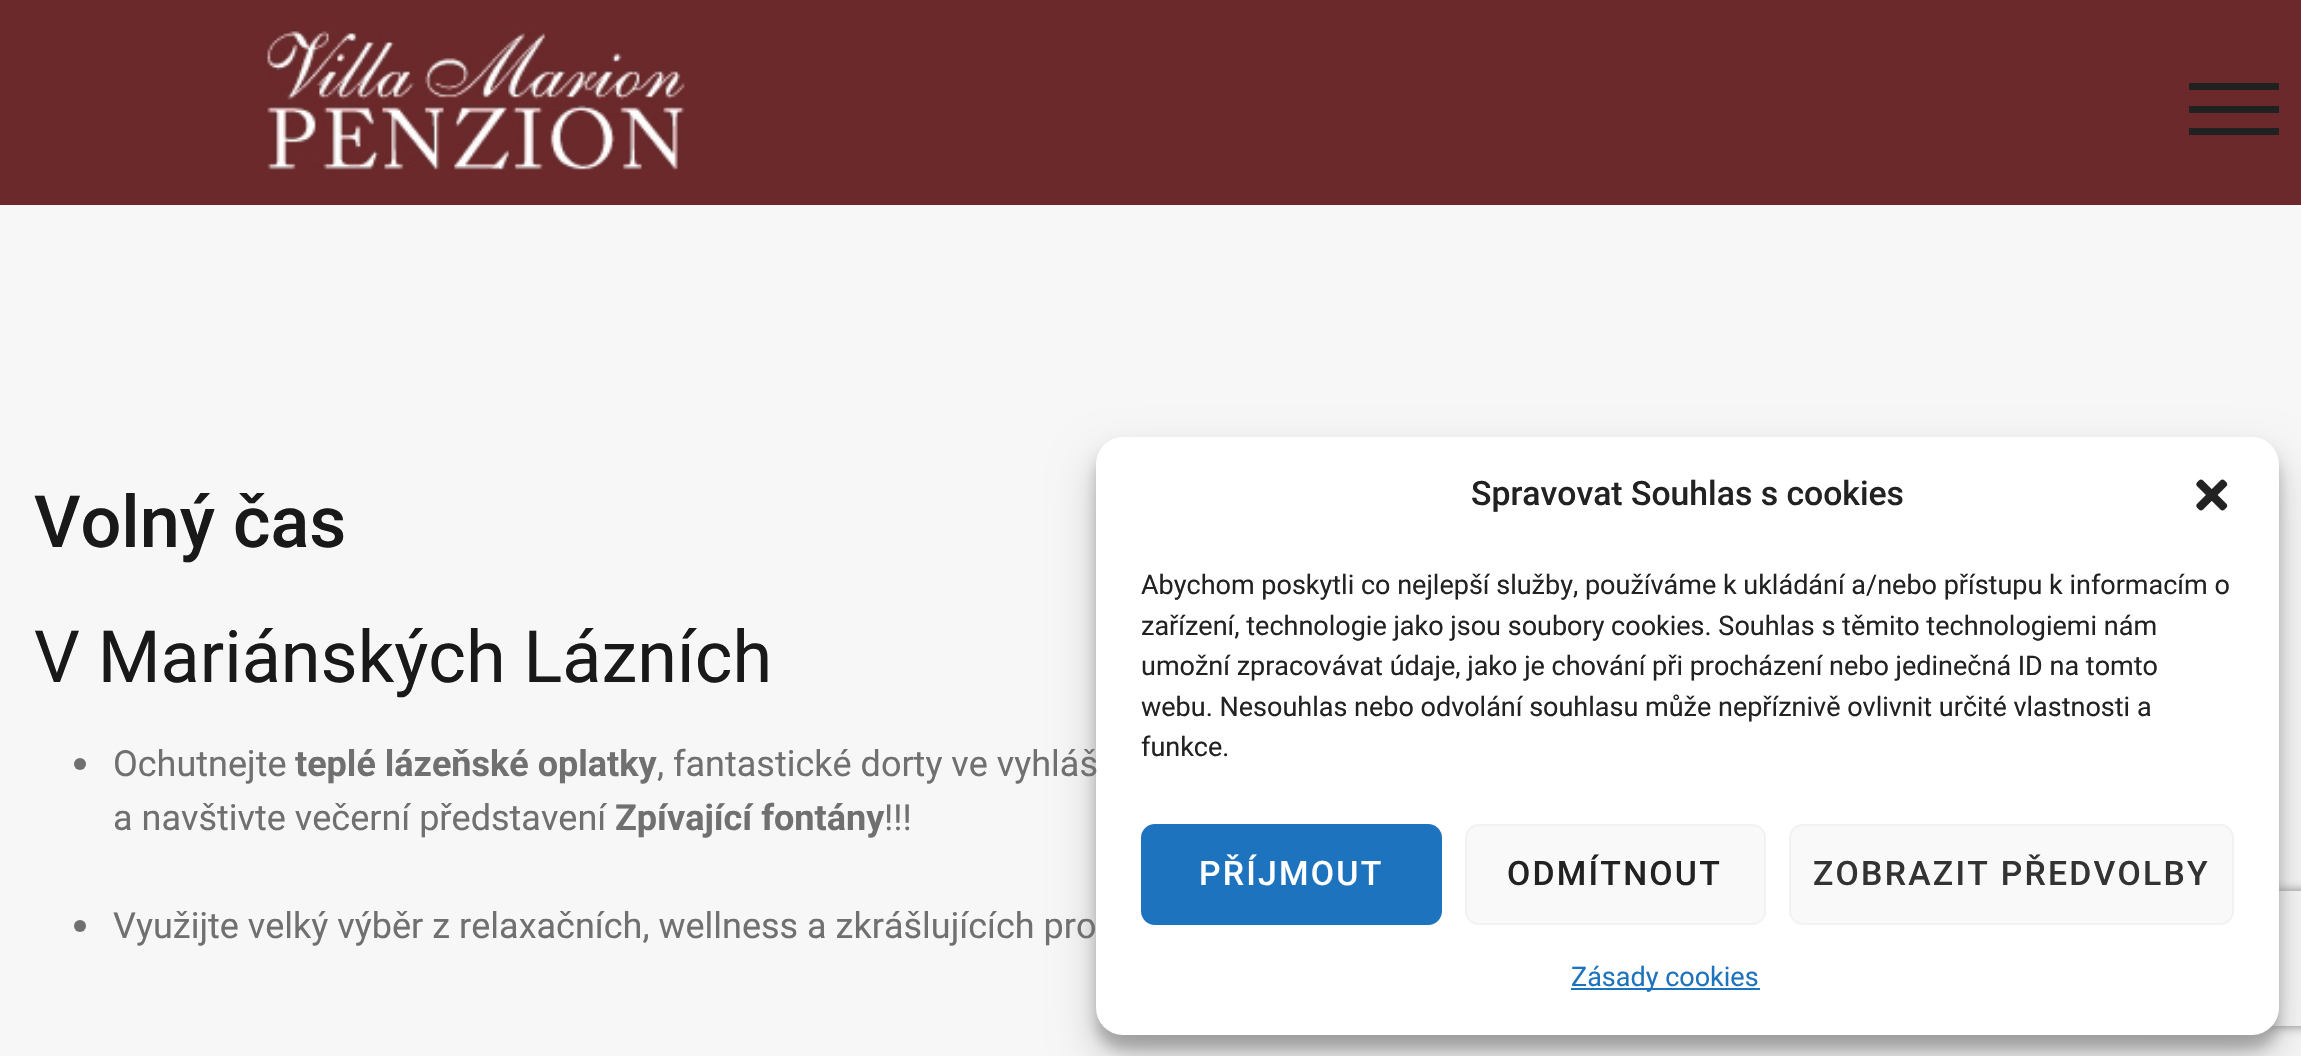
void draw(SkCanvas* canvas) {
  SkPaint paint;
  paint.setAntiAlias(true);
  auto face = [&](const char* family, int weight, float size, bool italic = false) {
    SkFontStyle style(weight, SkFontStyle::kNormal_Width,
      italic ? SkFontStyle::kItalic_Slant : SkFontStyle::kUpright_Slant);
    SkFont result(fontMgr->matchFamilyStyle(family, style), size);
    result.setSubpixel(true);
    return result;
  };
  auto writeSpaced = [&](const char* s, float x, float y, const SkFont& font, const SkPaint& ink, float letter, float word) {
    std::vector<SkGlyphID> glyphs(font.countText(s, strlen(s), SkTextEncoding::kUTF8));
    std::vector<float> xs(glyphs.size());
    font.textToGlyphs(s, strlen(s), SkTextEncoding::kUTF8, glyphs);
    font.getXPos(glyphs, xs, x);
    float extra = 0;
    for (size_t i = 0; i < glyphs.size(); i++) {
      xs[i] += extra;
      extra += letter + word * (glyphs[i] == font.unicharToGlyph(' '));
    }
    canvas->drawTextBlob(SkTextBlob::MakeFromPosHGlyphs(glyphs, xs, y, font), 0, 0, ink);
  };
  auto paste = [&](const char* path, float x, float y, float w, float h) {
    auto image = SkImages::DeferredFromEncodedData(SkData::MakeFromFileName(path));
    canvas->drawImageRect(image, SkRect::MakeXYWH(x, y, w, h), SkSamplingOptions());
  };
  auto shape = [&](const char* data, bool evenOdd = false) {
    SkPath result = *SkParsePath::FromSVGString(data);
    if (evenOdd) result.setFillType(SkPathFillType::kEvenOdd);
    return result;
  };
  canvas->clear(0xff6b292b);
  paste("img/1.png", 265, 29, 420, 141);
  {
    const struct { float x, y, w, h; SkColor color; } items[] = {
      {2189, 106, 90, 7, 0xff212121},
      {2189, 83, 90, 7, 0xff212121},
      {2189, 128, 90, 7, 0xff212121},
      {0, 205, 2301, 851, 0xfff7f7f7},
    };
    for (auto [x, y, w, h, color] : items) {
      paint.setColor(color);
      canvas->drawRect(SkRect::MakeXYWH(x, y, w, h), paint);
    }
  }
  paint.setColor(0xff707070);
  canvas->drawCircle(80, 764, 6, paint);
  canvas->drawCircle(80, 926, 6, paint);
  paint.setColor(0x3b000000);
  paint.setMaskFilter(SkMaskFilter::MakeBlur(kNormal_SkBlurStyle, 7));
  canvas->drawRoundRect(SkRect::MakeXYWH(1096, 450, 1183, 599), 27, 27, paint);
  paint.setMaskFilter(nullptr);
  paint.setColor(0x30000000);
  paint.setMaskFilter(SkMaskFilter::MakeBlur(kNormal_SkBlurStyle, 22.5f));
  canvas->drawRoundRect(SkRect::MakeXYWH(1096, 459, 1183, 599), 27, 27, paint);
  paint.setMaskFilter(nullptr);
  canvas->save();
  canvas->clipPath(shape("M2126 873H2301V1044H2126ZM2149 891H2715C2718 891 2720 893 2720 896V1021C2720 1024 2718 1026 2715 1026H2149C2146 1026 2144 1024 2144 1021V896C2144 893 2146 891 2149 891Z", true), true);
  paint.setColor(0xff808080);
  paint.setMaskFilter(SkMaskFilter::MakeBlur(kNormal_SkBlurStyle, 5.5f));
  canvas->drawRoundRect(SkRect::MakeXYWH(2144, 891, 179, 135), 5, 5, paint);
  paint.setMaskFilter(nullptr);
  canvas->restore();
  paint.setColor(0xffffffff);
  canvas->drawRoundRect(SkRect::MakeXYWH(1096, 437, 1183, 598), 27, 27, paint);
  paste("img/2.png", 2196, 479, 32, 32);
  paint.setColor(0xff1e73be);
  canvas->drawRoundRect(SkRect::MakeXYWH(1142, 825, 299, 99), 13, 13, paint);
  paint.setStroke(true);
  paint.setStrokeWidth(2);
  canvas->drawRoundRect(SkRect::MakeXYWH(1142, 825, 299, 99), 13, 13, paint);
  paint.setStroke(false);
  paint.setColor(0xfff9f9f9);
  canvas->drawRoundRect(SkRect::MakeXYWH(1466, 825, 299, 99), 13, 13, paint);
  paint.setStroke(true);
  paint.setColor(0xfff2f2f2);
  canvas->drawRoundRect(SkRect::MakeXYWH(1466, 825, 299, 99), 13, 13, paint);
  paint.setStroke(false);
  paint.setColor(0xfff9f9f9);
  canvas->drawRoundRect(SkRect::MakeXYWH(1790, 825, 443, 99), 13, 13, paint);
  paint.setStroke(true);
  paint.setColor(0xfff2f2f2);
  canvas->drawRoundRect(SkRect::MakeXYWH(1790, 825, 443, 99), 13, 13, paint);
  paint.setStroke(false);
  paint.setColor(0xff1e73be);
  canvas->drawRect(SkRect::MakeXYWH(1571, 988, 189, 2), paint);
  auto f0 = face("Roboto", 500, 72);
  paint.setColor(0xff191919);
  canvas->drawString("Volný čas", 34, 547, f0, paint);
  auto f1 = face("Roboto", 400, 72);
  canvas->drawString("V Mariánských Lázních", 34, 682, f1, paint);
  auto f2 = face("Roboto", 400, 36);
  paint.setColor(0xff707070);
  canvas->drawString("Ochutnejte", 113, 776, f2, paint);
  auto f3 = face("Roboto", 700, 36);
  canvas->drawString("teplé lázeňské oplatky", 295, 776, f3, paint);
  canvas->drawString(", fantastické dorty ve vyhláš", 657, 776, f2, paint);
  canvas->drawString("a navštivte večerní představení", 113, 830, f2, paint);
  canvas->drawString("Zpívající fontány", 615, 830, f3, paint);
  canvas->drawString("!!!", 884, 830, f2, paint);
  canvas->drawString("Využijte velký výběr z relaxačních, wellness a zkrášlujících pro", 113, 938, f2, paint);
  auto f4 = face("Roboto", 500, 33.75f);
  paint.setColor(0xff222222);
  canvas->drawString("Spravovat Souhlas s cookies", 1471, 505, f4, paint);
  auto f5 = face("Roboto", 400, 27);
  {
    const struct { const char* s; float x, y; } items[] = {
      {"Abychom poskytli co nejlepší služby, používáme k ukládání a/nebo přístupu k informacím o", 1141, 594},
      {"zařízení, technologie jako jsou soubory cookies. Souhlas s těmito technologiemi nám", 1141, 635},
      {"umožní zpracovávat údaje, jako je chování při procházení nebo jedinečná ID na tomto", 1141, 675},
      {"webu. Nesouhlas nebo odvolání souhlasu může nepříznivě ovlivnit určité vlastnosti a", 1141, 716},
      {"funkce.", 1141, 756},
    };
    for (auto [s, x, y] : items) {
      canvas->drawString(s, x, y, f5, paint);
    }
  }
  paint.setColor(0xffffffff);
  writeSpaced("PŘÍJMOUT", 1199, 885, f4, paint, 2.25f, 0);
  paint.setColor(0xff222222);
  writeSpaced("ODMÍTNOUT", 1507, 885, f4, paint, 2.25f, 0);
  paint.setColor(0xff333333);
  writeSpaced("ZOBRAZIT PŘEDVOLBY", 1813, 885, f4, paint, 2.25f, 0);
  paint.setColor(0xff1e73be);
  canvas->drawString("Zásady cookies", 1571, 986, f5, paint);
}
